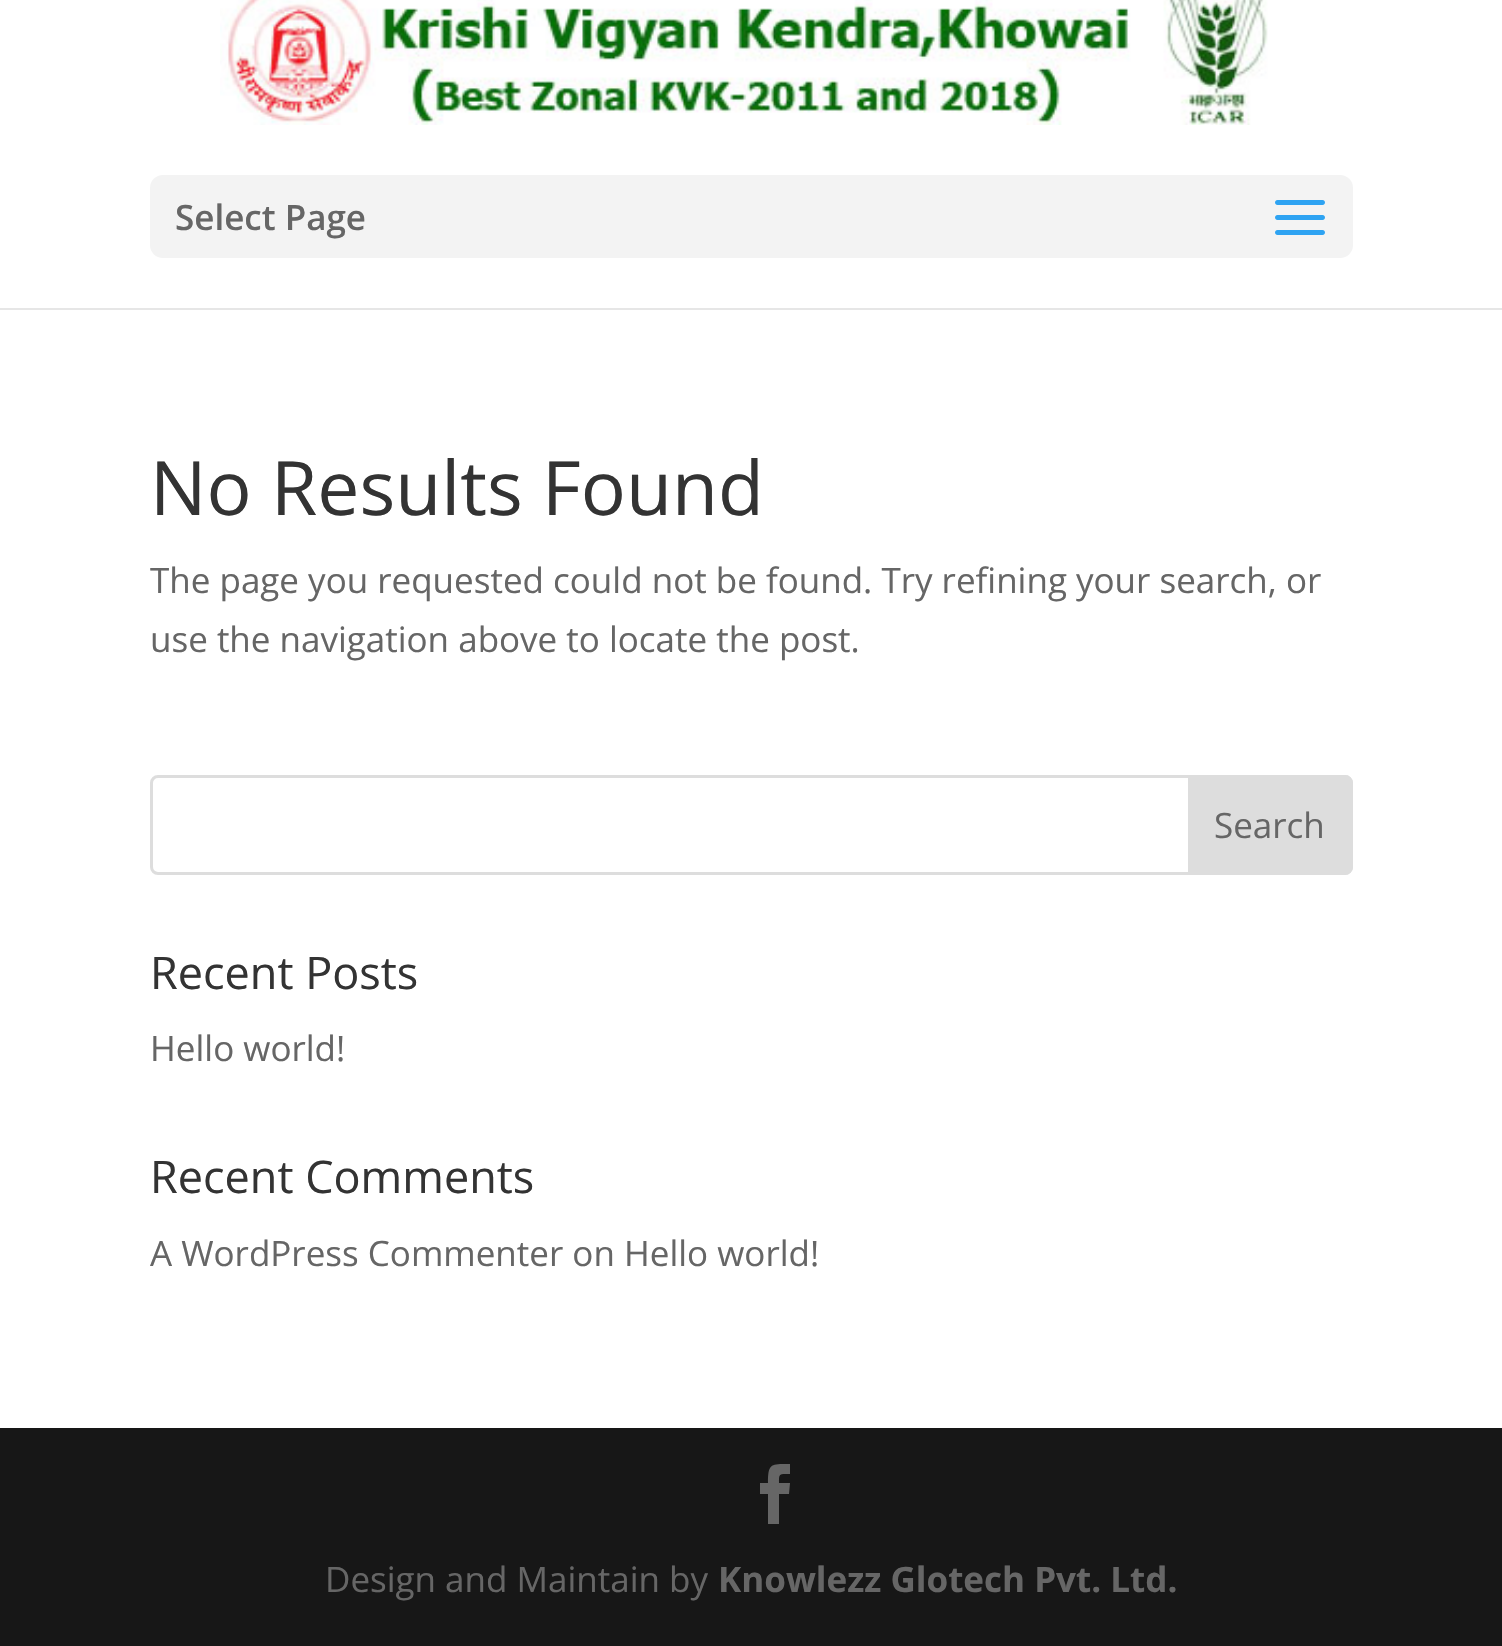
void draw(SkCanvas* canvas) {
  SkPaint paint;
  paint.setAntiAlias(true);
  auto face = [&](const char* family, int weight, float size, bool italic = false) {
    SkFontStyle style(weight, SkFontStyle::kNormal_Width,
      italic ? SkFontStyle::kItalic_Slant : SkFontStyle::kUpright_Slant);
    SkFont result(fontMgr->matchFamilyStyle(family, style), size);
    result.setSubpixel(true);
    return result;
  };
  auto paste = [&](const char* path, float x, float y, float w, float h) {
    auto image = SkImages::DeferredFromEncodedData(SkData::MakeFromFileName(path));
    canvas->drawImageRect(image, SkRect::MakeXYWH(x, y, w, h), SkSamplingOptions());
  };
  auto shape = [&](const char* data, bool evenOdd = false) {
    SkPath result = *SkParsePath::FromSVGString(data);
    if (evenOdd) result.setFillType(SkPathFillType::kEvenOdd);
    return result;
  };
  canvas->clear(0xffffffff);
  paint.setColor(0xffe6e6e6);
  canvas->drawPath(shape("M0 308V310H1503V-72H1502V308Z"), paint);
  paste("img/1.png", 220, 0, 1048, 125);
  paint.setColor(0xfff3f3f3);
  canvas->drawRoundRect(SkRect::MakeXYWH(150, 175, 1203, 83), 13, 13, paint);
  paste("img/2.png", 1275, 200, 50, 35);
  paint.setStroke(true);
  paint.setStrokeWidth(3);
  paint.setColor(0xffdddddd);
  canvas->drawRoundRect(SkRect::MakeXYWH(151.5f, 776.5f, 1200, 97), 6.5f, 6.5f, paint);
  paint.setStroke(false);
  canvas->drawPath(shape("M1189.5 776.5H1345C1348.5 776.5 1351.5 779.5 1351.5 783V867C1351.5 870.5 1348.5 873.5 1345 873.5H1189.5Z"), paint);
  paint.setStroke(true);
  canvas->drawPath(shape("M1189.5 776.5H1345C1348.5 776.5 1351.5 779.5 1351.5 783V867C1351.5 870.5 1348.5 873.5 1345 873.5H1189.5Z"), paint);
  paint.setStroke(false);
  paint.setColor(0xff171717);
  canvas->drawRect(SkRect::MakeXYWH(0, 1428, 1502, 218), paint);
  paint.setColor(0xff666666);
  canvas->drawPath(shape("M768 1524H779V1494H789L790 1483H779C779 1473 779 1474 790 1474V1464C771 1464 768 1463 768 1483H760V1494H768Z"), paint);
  auto f0 = face("Open Sans", 600, 35);
  canvas->drawString("Select Page", 175, 230, f0, paint);
  auto f1 = face("Open Sans", 400, 75);
  paint.setColor(0xff333333);
  canvas->drawString("No Results Found", 150, 515, f1, paint);
  auto f2 = face("Open Sans", 400, 35);
  paint.setColor(0xff666666);
  {
    const struct { const char* s; float x, y; } items[] = {
      {"The page you requested could not be found. Try refining your search, or", 150, 593},
      {"use the navigation above to locate the post.", 150, 652},
      {"Search", 1214, 838},
    };
    for (auto [s, x, y] : items) {
      canvas->drawString(s, x, y, f2, paint);
    }
  }
  auto f3 = face("Open Sans", 400, 45);
  paint.setColor(0xff333333);
  canvas->drawString("Recent Posts", 150, 989, f3, paint);
  paint.setColor(0xff666666);
  canvas->drawString("Hello world!", 150, 1061, f2, paint);
  paint.setColor(0xff333333);
  canvas->drawString("Recent Comments", 150, 1193, f3, paint);
  paint.setColor(0xff666666);
  canvas->drawString("A WordPress Commenter on Hello world!", 150, 1266, f2, paint);
  canvas->drawString("Design and Maintain by", 325, 1592, f2, paint);
  auto f4 = face("Open Sans", 700, 35);
  canvas->drawString("Knowlezz Glotech Pvt. Ltd.", 718, 1592, f4, paint);
}
